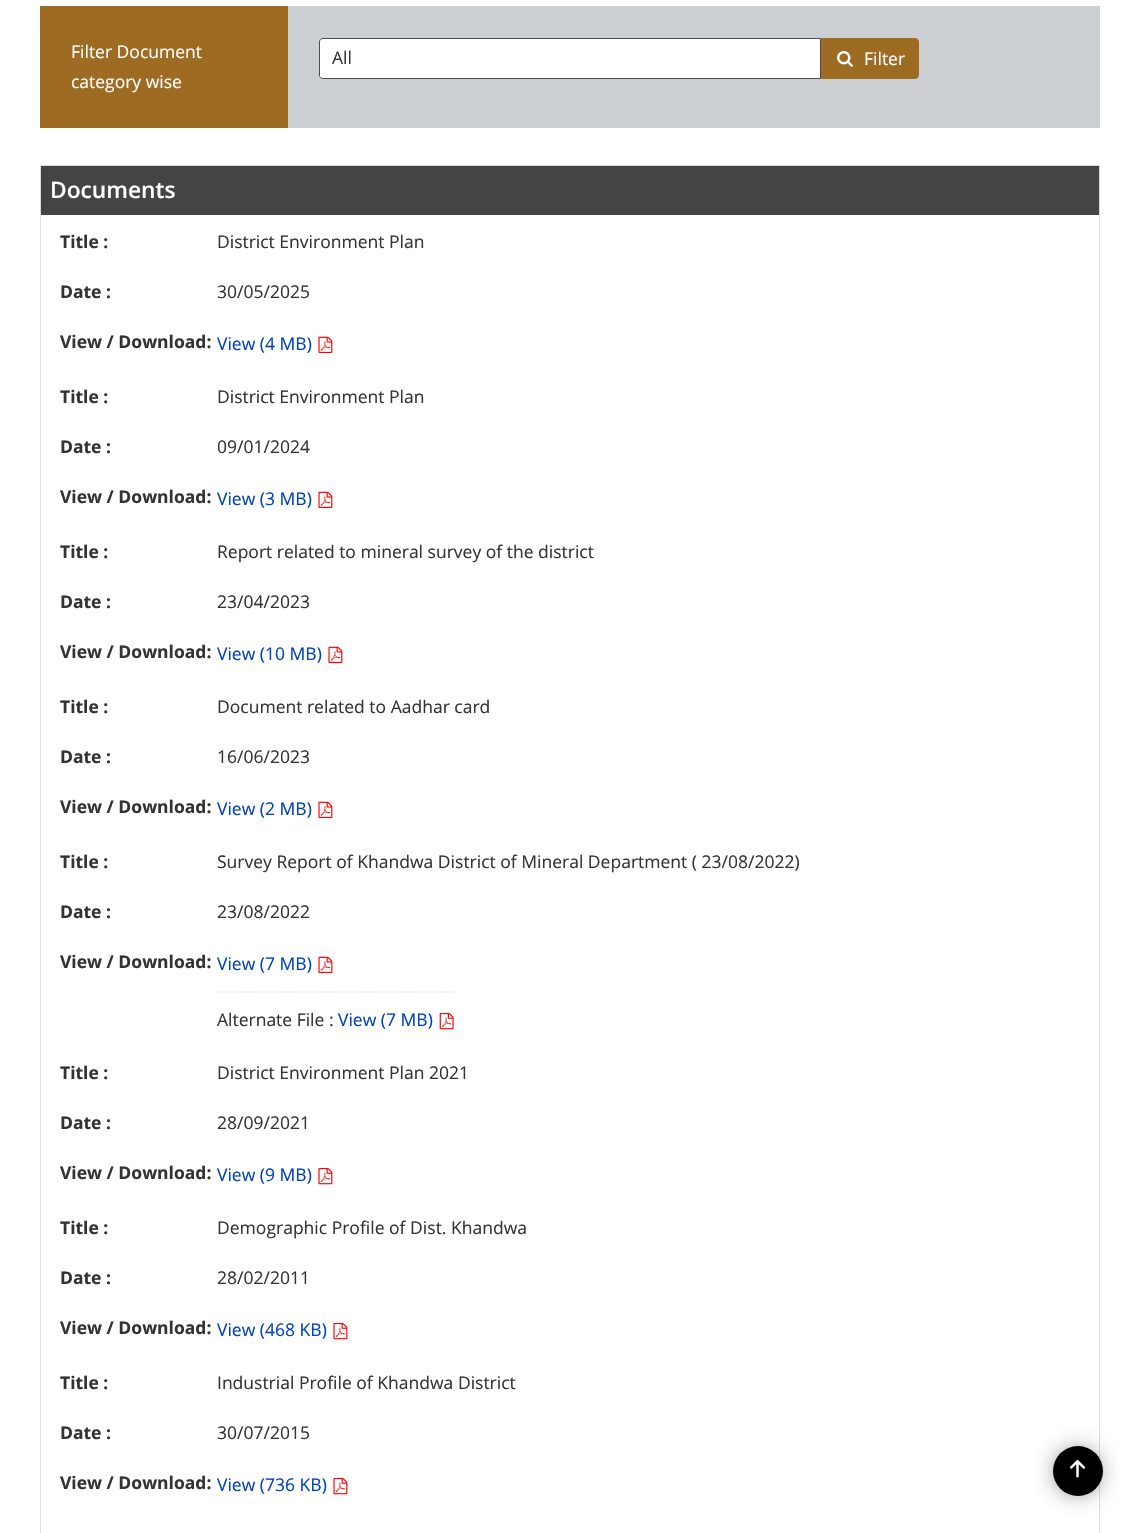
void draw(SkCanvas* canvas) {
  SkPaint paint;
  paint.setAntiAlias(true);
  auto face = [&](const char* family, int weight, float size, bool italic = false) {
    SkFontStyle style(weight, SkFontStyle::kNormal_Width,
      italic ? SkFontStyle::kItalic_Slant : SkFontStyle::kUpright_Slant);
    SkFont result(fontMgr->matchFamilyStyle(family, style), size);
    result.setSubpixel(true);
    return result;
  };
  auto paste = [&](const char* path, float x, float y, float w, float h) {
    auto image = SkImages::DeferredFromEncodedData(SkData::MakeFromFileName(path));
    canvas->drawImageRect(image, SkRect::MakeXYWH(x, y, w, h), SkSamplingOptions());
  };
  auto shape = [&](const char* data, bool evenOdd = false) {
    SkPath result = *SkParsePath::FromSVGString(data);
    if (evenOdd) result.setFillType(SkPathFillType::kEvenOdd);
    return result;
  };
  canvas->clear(0xffffffff);
  paint.setColor(0xffcccfd1);
  canvas->drawRect(SkRect::MakeXYWH(288, 6, 812, 122), paint);
  paint.setColor(0xff9e6b22);
  canvas->drawRect(SkRect::MakeXYWH(40, 6, 248, 122), paint);
  paint.setColor(0xffffffff);
  canvas->drawPath(shape("M323 38.5H820.5V78.5H323C321 78.5 319.5 77 319.5 75V42C319.5 40 321 38.5 323 38.5Z"), paint);
  paint.setStroke(true);
  paint.setStrokeWidth(1);
  paint.setColor(0xff504949);
  canvas->drawPath(shape("M323 38.5H820.5V78.5H323C321 78.5 319.5 77 319.5 75V42C319.5 40 321 38.5 323 38.5Z"), paint);
  paint.setStroke(false);
  paint.setColor(0xff9e6b22);
  canvas->drawPath(shape("M821 38H915C917 38 919 40 919 42V75C919 77 917 79 915 79H821Z"), paint);
  paste("img/1.png", 837, 51, 16, 16);
  {
    const struct { float x, y, w, h; SkColor color; } items[] = {
      {40, 165, 1060, 1, 0xffdddddd},
      {1099, 165, 1, 1368, 0xffdddddd},
      {40, 165, 1, 1368, 0xffdddddd},
      {41, 166, 1058, 49, 0xff444444},
    };
    for (auto [x, y, w, h, color] : items) {
      paint.setColor(color);
      canvas->drawRect(SkRect::MakeXYWH(x, y, w, h), paint);
    }
  }
  paste("img/2.png", 318, 336, 15, 17);
  paste("img/2.png", 318, 491, 15, 17);
  paste("img/2.png", 328, 646, 15, 17);
  paste("img/2.png", 318, 801, 15, 17);
  paste("img/2.png", 318, 956, 15, 17);
  paint.setStroke(true);
  paint.setStrokeWidth(1.2f);
  paint.setColor(0xffdddddd);
  paint.setPathEffect(SkDashPathEffect::Make({{1.25f, 1.25f}}, 0));
  canvas->drawPath(shape("M217.5 992H455"), paint);
  paint.setPathEffect(nullptr);
  paste("img/3.png", 439, 1013, 15, 17);
  paste("img/4.png", 318, 1168, 15, 17);
  paste("img/4.png", 333, 1323, 15, 17);
  paste("img/4.png", 333, 1478, 15, 17);
  paint.setStroke(false);
  paint.setColor(0xff3c3c3c);
  paint.setMaskFilter(SkMaskFilter::MakeBlur(kNormal_SkBlurStyle, 12));
  canvas->drawRoundRect(SkRect::MakeXYWH(1059, 1453, 37, 37), 18.5f, 18.5f, paint);
  paint.setMaskFilter(nullptr);
  paint.setColor(0xff000000);
  canvas->drawCircle(1078, 1471, 25, paint);
  paste("img/5.png", 1070, 1460, 15, 18);
  auto f0 = face("Open Sans", 400, 17.5f);
  paint.setColor(0xffffffff);
  canvas->drawString("Filter Document", 71, 58, f0, paint);
  canvas->drawString("category wise", 71, 88, f0, paint);
  paint.setColor(0xff333333);
  canvas->drawString("All", 332, 64, f0, paint);
  paint.setColor(0xffffffff);
  canvas->drawString("Filter", 864, 65, f0, paint);
  auto f1 = face("Open Sans", 600, 22.75f);
  canvas->drawString("Documents", 50, 198, f1, paint);
  auto f2 = face("Open Sans", 700, 17.5f);
  paint.setColor(0xff333333);
  canvas->drawString("Title :", 60, 248, f2, paint);
  canvas->drawString("District Environment Plan", 217, 248, f0, paint);
  canvas->drawString("Date :", 60, 298, f2, paint);
  canvas->drawString("30/05/2025", 217, 298, f0, paint);
  canvas->drawString("View / Download:", 60, 348, f2, paint);
  paint.setColor(0xff0042bf);
  canvas->drawString("View (4 MB)", 217, 350, f0, paint);
  paint.setColor(0xff333333);
  canvas->drawString("Title :", 60, 403, f2, paint);
  canvas->drawString("District Environment Plan", 217, 403, f0, paint);
  canvas->drawString("Date :", 60, 453, f2, paint);
  canvas->drawString("09/01/2024", 217, 453, f0, paint);
  canvas->drawString("View / Download:", 60, 503, f2, paint);
  paint.setColor(0xff0042bf);
  canvas->drawString("View (3 MB)", 217, 505, f0, paint);
  paint.setColor(0xff333333);
  canvas->drawString("Title :", 60, 558, f2, paint);
  canvas->drawString("Report related to mineral survey of the district", 217, 558, f0, paint);
  canvas->drawString("Date :", 60, 608, f2, paint);
  canvas->drawString("23/04/2023", 217, 608, f0, paint);
  canvas->drawString("View / Download:", 60, 658, f2, paint);
  paint.setColor(0xff0042bf);
  canvas->drawString("View (10 MB)", 217, 660, f0, paint);
  paint.setColor(0xff333333);
  canvas->drawString("Title :", 60, 713, f2, paint);
  canvas->drawString("Document related to Aadhar card", 217, 713, f0, paint);
  canvas->drawString("Date :", 60, 763, f2, paint);
  canvas->drawString("16/06/2023", 217, 763, f0, paint);
  canvas->drawString("View / Download:", 60, 813, f2, paint);
  paint.setColor(0xff0042bf);
  canvas->drawString("View (2 MB)", 217, 815, f0, paint);
  paint.setColor(0xff333333);
  canvas->drawString("Title :", 60, 868, f2, paint);
  canvas->drawString("Survey Report of Khandwa District of Mineral Department ( 23/08/2022)", 217, 868, f0, paint);
  canvas->drawString("Date :", 60, 918, f2, paint);
  canvas->drawString("23/08/2022", 217, 918, f0, paint);
  canvas->drawString("View / Download:", 60, 968, f2, paint);
  paint.setColor(0xff0042bf);
  canvas->drawString("View (7 MB)", 217, 970, f0, paint);
  paint.setColor(0xff333333);
  canvas->drawString("Alternate File :", 217, 1026, f0, paint);
  paint.setColor(0xff0042bf);
  canvas->drawString("View (7 MB)", 338, 1026, f0, paint);
  paint.setColor(0xff333333);
  canvas->drawString("Title :", 60, 1079, f2, paint);
  canvas->drawString("District Environment Plan 2021", 217, 1079, f0, paint);
  canvas->drawString("Date :", 60, 1129, f2, paint);
  canvas->drawString("28/09/2021", 217, 1129, f0, paint);
  canvas->drawString("View / Download:", 60, 1179, f2, paint);
  paint.setColor(0xff0042bf);
  canvas->drawString("View (9 MB)", 217, 1181, f0, paint);
  paint.setColor(0xff333333);
  canvas->drawString("Title :", 60, 1234, f2, paint);
  canvas->drawString("Demographic Profile of Dist. Khandwa", 217, 1234, f0, paint);
  canvas->drawString("Date :", 60, 1284, f2, paint);
  canvas->drawString("28/02/2011", 217, 1284, f0, paint);
  canvas->drawString("View / Download:", 60, 1334, f2, paint);
  paint.setColor(0xff0042bf);
  canvas->drawString("View (468 KB)", 217, 1336, f0, paint);
  paint.setColor(0xff333333);
  canvas->drawString("Title :", 60, 1389, f2, paint);
  canvas->drawString("Industrial Profile of Khandwa District", 217, 1389, f0, paint);
  canvas->drawString("Date :", 60, 1439, f2, paint);
  canvas->drawString("30/07/2015", 217, 1439, f0, paint);
  canvas->drawString("View / Download:", 60, 1489, f2, paint);
  paint.setColor(0xff0042bf);
  canvas->drawString("View (736 KB)", 217, 1491, f0, paint);
}
